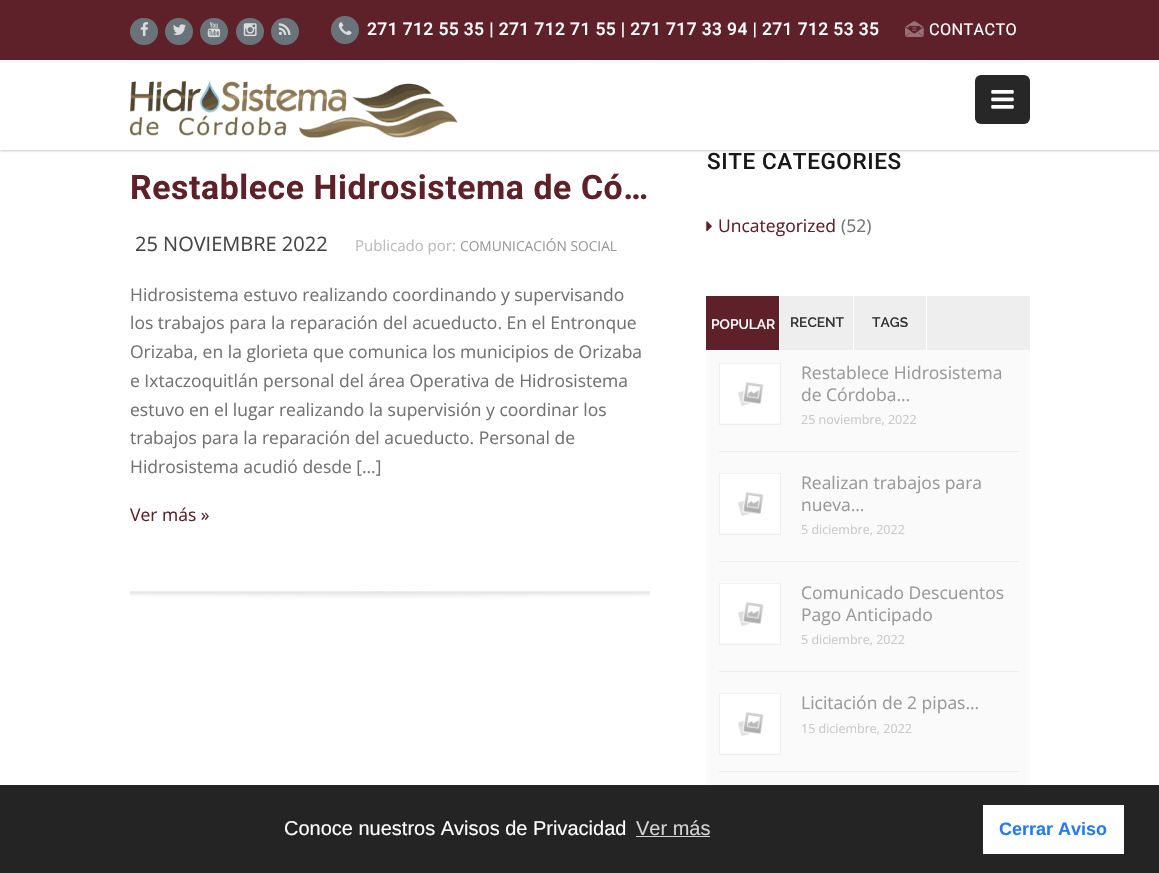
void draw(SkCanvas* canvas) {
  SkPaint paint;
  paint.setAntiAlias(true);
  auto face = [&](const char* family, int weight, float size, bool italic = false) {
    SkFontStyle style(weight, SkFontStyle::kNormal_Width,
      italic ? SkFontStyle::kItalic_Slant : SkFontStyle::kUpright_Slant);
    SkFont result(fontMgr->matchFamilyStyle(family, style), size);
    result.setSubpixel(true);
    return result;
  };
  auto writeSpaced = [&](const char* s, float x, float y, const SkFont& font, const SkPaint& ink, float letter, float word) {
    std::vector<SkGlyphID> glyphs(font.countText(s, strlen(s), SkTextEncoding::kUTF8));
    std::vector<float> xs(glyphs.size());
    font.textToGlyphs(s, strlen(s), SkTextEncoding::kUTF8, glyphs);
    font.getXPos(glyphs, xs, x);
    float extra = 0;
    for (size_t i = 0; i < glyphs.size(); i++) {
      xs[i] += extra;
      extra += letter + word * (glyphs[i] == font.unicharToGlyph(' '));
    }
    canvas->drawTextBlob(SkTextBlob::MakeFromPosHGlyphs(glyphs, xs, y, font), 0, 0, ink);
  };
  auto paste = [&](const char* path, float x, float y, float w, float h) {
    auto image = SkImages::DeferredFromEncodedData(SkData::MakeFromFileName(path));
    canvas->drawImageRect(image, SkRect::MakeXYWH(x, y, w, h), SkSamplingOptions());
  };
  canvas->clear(0xfffafafa);
  paint.setColor(0xff5e2129);
  canvas->drawRect(SkRect::MakeXYWH(0, 0, 1159, 60), paint);
  paint.setColor(0xff6a7379);
  canvas->drawRoundRect(SkRect::MakeXYWH(130, 18, 28, 27), 13.5f, 13.5f, paint);
  paste("img/1.png", 140, 22, 8, 15);
  canvas->drawRoundRect(SkRect::MakeXYWH(165, 18, 28, 27), 13.5f, 13.5f, paint);
  paste("img/2.png", 173, 24, 13, 11);
  canvas->drawRoundRect(SkRect::MakeXYWH(200, 18, 28, 27), 13.5f, 13.5f, paint);
  paste("img/3.png", 207, 22, 14, 16);
  canvas->drawRoundRect(SkRect::MakeXYWH(236, 18, 28, 27), 13.5f, 13.5f, paint);
  paste("img/4.png", 243, 23, 14, 14);
  canvas->drawRoundRect(SkRect::MakeXYWH(271, 18, 28, 27), 13.5f, 13.5f, paint);
  paste("img/5.png", 278, 23, 13, 12);
  canvas->drawCircle(345, 30, 14, paint);
  paste("img/6.png", 338, 22, 14, 13);
  paste("img/7.png", 905, 21, 19, 16);
  paint.setColor(0xffffffff);
  canvas->drawRect(SkRect::MakeXYWH(0, 150, 1159, 635), paint);
  paint.setColor(0x33000000);
  paint.setMaskFilter(SkMaskFilter::MakeBlur(kNormal_SkBlurStyle, 1));
  canvas->drawRect(SkRect::MakeXYWH(0, 64, 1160, 87), paint);
  paint.setMaskFilter(nullptr);
  paint.setColor(0xffffffff);
  canvas->drawRect(SkRect::MakeXYWH(0, 63, 1159, 87), paint);
  paste("img/8.png", 130, 81, 328, 57);
  paint.setColor(0xff272727);
  canvas->drawRoundRect(SkRect::MakeXYWH(975, 75, 55, 49), 6, 6, paint);
  paste("img/9.png", 991, 90, 23, 19);
  paste("img/10.png", 130, 591, 520, 8);
  paste("img/11.png", 706, 221, 6, 11);
  {
    const struct { float x, y, w, h; SkColor color; } items[] = {
      {780, 296, 250, 54, 0xffeeeeee},
      {706, 296, 73, 54, 0xff5e2129},
      {853, 296, 1, 54, 0xffffffff},
      {926, 296, 1, 54, 0xffffffff},
      {706, 350, 324, 435, 0xfffafafa},
      {719, 451, 300, 1, 0xffeeeeee},
    };
    for (auto [x, y, w, h, color] : items) {
      paint.setColor(color);
      canvas->drawRect(SkRect::MakeXYWH(x, y, w, h), paint);
    }
  }
  paint.setStroke(true);
  paint.setStrokeWidth(1);
  canvas->drawRect(SkRect::MakeXYWH(719.5f, 363.5f, 61, 61), paint);
  paste("img/12.png", 720, 363, 60, 60);
  paint.setStroke(false);
  canvas->drawRect(SkRect::MakeXYWH(719, 561, 300, 1), paint);
  paint.setStroke(true);
  canvas->drawRect(SkRect::MakeXYWH(719.5f, 473.5f, 61, 61), paint);
  paste("img/12.png", 720, 473, 60, 60);
  paint.setStroke(false);
  canvas->drawRect(SkRect::MakeXYWH(719, 671, 300, 1), paint);
  paint.setStroke(true);
  canvas->drawRect(SkRect::MakeXYWH(719.5f, 583.5f, 61, 61), paint);
  paste("img/12.png", 720, 583, 60, 60);
  paint.setStroke(false);
  canvas->drawRect(SkRect::MakeXYWH(719, 771, 300, 1), paint);
  paint.setStroke(true);
  canvas->drawRect(SkRect::MakeXYWH(719.5f, 693.5f, 61, 61), paint);
  paste("img/12.png", 720, 693, 60, 60);
  paint.setStroke(false);
  {
    const struct { float x, y, w, h; SkColor color; } items[] = {
      {0, 785, 1159, 88, 0xff242424},
      {636, 836, 74, 1, 0xffd3d3d3},
      {983, 805, 141, 49, 0xffffffff},
    };
    for (auto [x, y, w, h, color] : items) {
      paint.setColor(color);
      canvas->drawRect(SkRect::MakeXYWH(x, y, w, h), paint);
    }
  }
  auto f0 = face("Roboto", 500, 17.5f);
  writeSpaced("271 712 55 35 | 271 712 71 55 | 271 717 33 94 | 271 712 53 35", 367, 35, f0, paint, 0.38f, 0);
  auto f1 = face("Roboto", 400, 16.25f);
  writeSpaced("CONTACTO", 929, 35, f1, paint, 0.38f, 0);
  auto f2 = face("Roboto", 700, 33.75f);
  paint.setColor(0xff5e2129);
  writeSpaced("Restablece Hidrosistema de Có…", 130, 199, f2, paint, 0.6f, 0);
  auto f3 = face("Open Sans", 400, 20);
  paint.setColor(0xff454545);
  canvas->drawString("25 NOVIEMBRE 2022", 135, 251, f3, paint);
  auto f4 = face("Open Sans", 400, 15);
  paint.setColor(0xffbbbbbb);
  canvas->drawString("Publicado por:", 355, 251, f4, paint);
  auto f5 = face("Open Sans", 400, 13.75f);
  paint.setColor(0xff999999);
  canvas->drawString("COMUNICACIÓN SOCIAL", 460, 251, f5, paint);
  auto f6 = face("Open Sans", 400, 17.5f);
  paint.setColor(0xff727272);
  {
    const struct { const char* s; float x, y; } items[] = {
      {"Hidrosistema estuvo realizando coordinando y supervisando", 130, 301},
      {"los trabajos para la reparación del acueducto. En el Entronque", 130, 329},
      {"Orizaba, en la glorieta que comunica los municipios de Orizaba", 130, 358},
      {"e Ixtaczoquitlán personal del área Operativa de Hidrosistema", 130, 387},
      {"estuvo en el lugar realizando la supervisión y coordinar los", 130, 416},
      {"trabajos para la reparación del acueducto. Personal de", 130, 444},
      {"Hidrosistema acudió desde […]", 130, 473},
    };
    for (auto [s, x, y] : items) {
      canvas->drawString(s, x, y, f6, paint);
    }
  }
  paint.setColor(0xff5e2129);
  canvas->drawString("Ver más »", 130, 521, f6, paint);
  auto f7 = face("Roboto", 500, 22.5f);
  paint.setColor(0xff181818);
  writeSpaced("SITE CATEGORIES", 707, 169, f7, paint, 0.6f, 0);
  paint.setColor(0xff5e2129);
  canvas->drawString("Uncategorized", 718, 232, f6, paint);
  paint.setColor(0xff727272);
  canvas->drawString("(52)", 841, 232, f6, paint);
  auto f8 = face("Raleway", 600, 13.75f);
  paint.setColor(0xffffffff);
  canvas->drawString("POPULAR", 711, 329, f8, paint);
  paint.setColor(0xff333333);
  canvas->drawString("RECENT", 790, 327, f8, paint);
  canvas->drawString("TAGS", 872, 327, f8, paint);
  paint.setColor(0xff999999);
  canvas->drawString("Restablece Hidrosistema", 801, 379, f6, paint);
  canvas->drawString("de Córdoba…", 801, 401, f6, paint);
  auto f9 = face("Open Sans", 400, 12.5f);
  paint.setColor(0xffc9c9c9);
  canvas->drawString("25 noviembre, 2022", 801, 424, f9, paint);
  paint.setColor(0xff999999);
  canvas->drawString("Realizan trabajos para", 801, 489, f6, paint);
  canvas->drawString("nueva…", 801, 511, f6, paint);
  paint.setColor(0xffc9c9c9);
  canvas->drawString("5 diciembre, 2022", 801, 534, f9, paint);
  paint.setColor(0xff999999);
  canvas->drawString("Comunicado Descuentos", 801, 599, f6, paint);
  canvas->drawString("Pago Anticipado", 801, 621, f6, paint);
  paint.setColor(0xffc9c9c9);
  canvas->drawString("5 diciembre, 2022", 801, 644, f9, paint);
  paint.setColor(0xff999999);
  canvas->drawString("Licitación de 2 pipas…", 801, 709, f6, paint);
  paint.setColor(0xffc9c9c9);
  canvas->drawString("15 diciembre, 2022", 801, 733, f9, paint);
  auto f10 = face("Liberation Sans", 400, 20);
  paint.setColor(0xffffffff);
  canvas->drawString("Conoce nuestros Avisos de Privacidad", 284, 835, f10, paint);
  paint.setColor(0xffd3d3d3);
  canvas->drawString("Ver más", 636, 835, f10, paint);
  auto f11 = face("Liberation Sans", 700, 18);
  paint.setColor(0xff237afc);
  canvas->drawString("Cerrar Aviso", 999, 835, f11, paint);
}
